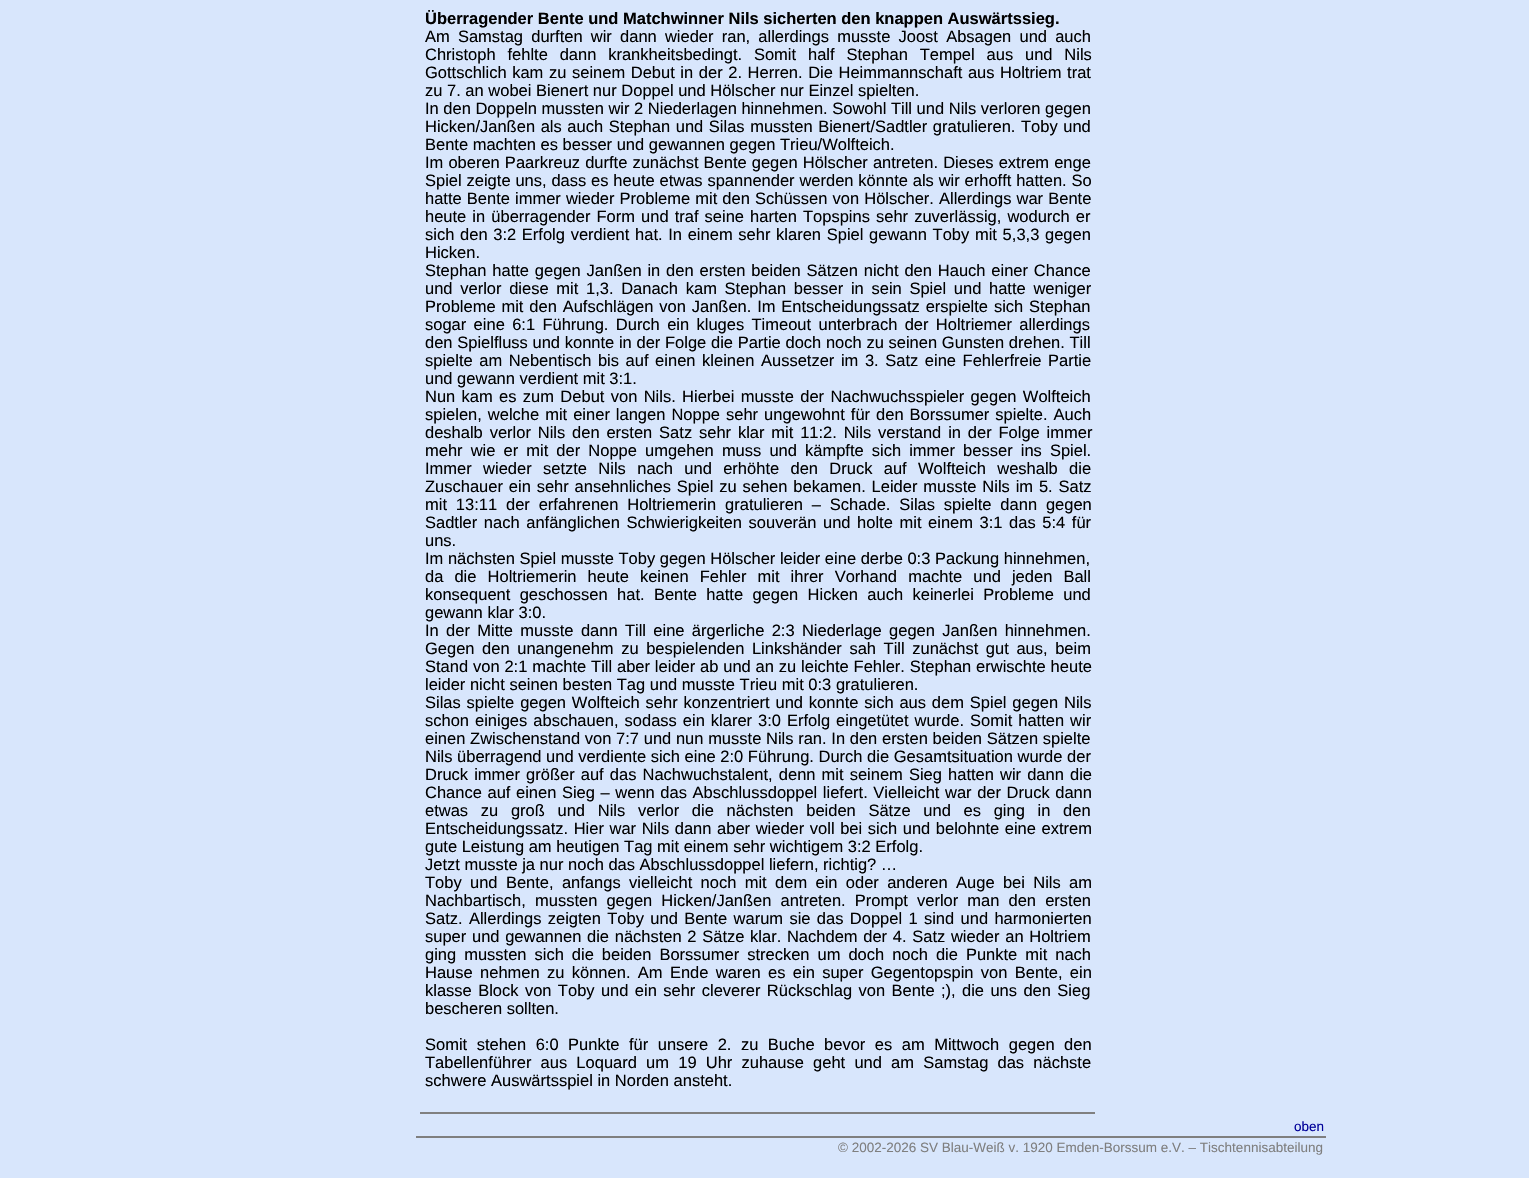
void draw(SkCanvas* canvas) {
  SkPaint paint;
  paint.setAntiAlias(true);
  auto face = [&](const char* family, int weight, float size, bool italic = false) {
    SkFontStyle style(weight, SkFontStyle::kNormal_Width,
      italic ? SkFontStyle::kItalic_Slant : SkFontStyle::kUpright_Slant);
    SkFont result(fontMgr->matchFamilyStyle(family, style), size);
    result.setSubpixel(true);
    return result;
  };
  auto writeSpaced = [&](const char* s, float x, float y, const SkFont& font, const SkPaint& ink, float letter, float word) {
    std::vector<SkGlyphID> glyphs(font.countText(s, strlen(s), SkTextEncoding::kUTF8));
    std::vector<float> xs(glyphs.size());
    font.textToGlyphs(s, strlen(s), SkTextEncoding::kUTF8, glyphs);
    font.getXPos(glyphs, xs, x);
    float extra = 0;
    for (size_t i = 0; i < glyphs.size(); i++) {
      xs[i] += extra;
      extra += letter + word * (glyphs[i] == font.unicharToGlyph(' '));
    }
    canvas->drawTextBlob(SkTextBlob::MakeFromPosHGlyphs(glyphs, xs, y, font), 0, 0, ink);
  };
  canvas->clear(0xffd8e6fc);
  paint.setColor(0xff808080);
  canvas->drawRect(SkRect::MakeXYWH(420, 1112, 675, 2), paint);
  paint.setColor(0xff7f7f7f);
  canvas->drawRect(SkRect::MakeXYWH(416, 1136, 910, 2), paint);
  auto f0 = face("Liberation Sans", 700, 16.5f);
  paint.setColor(0xff000000);
  canvas->drawString("Überragender Bente und Matchwinner Nils sicherten den knappen Auswärtssieg.", 425, 24, f0, paint);
  auto f1 = face("Liberation Sans", 400, 16.5f);
  writeSpaced("Am Samstag durften wir dann wieder ran, allerdings musste Joost Absagen und auch", 425, 42, f1, paint, 0, 3.6f);
  writeSpaced("Christoph fehlte dann krankheitsbedingt. Somit half Stephan Tempel aus und Nils", 425, 60, f1, paint, 0, 7.25f);
  writeSpaced("Gottschlich kam zu seinem Debut in der 2. Herren. Die Heimmannschaft aus Holtriem trat", 425, 78, f1, paint, 0, 1);
  canvas->drawString("zu 7. an wobei Bienert nur Doppel und Hölscher nur Einzel spielten.", 425, 96, f1, paint);
  canvas->drawString("In den Doppeln mussten wir 2 Niederlagen hinnehmen. Sowohl Till und Nils verloren gegen", 425, 114, f1, paint);
  writeSpaced("Hicken/Janßen als auch Stephan und Silas mussten Bienert/Sadtler gratulieren. Toby und", 425, 132, f1, paint, 0, 1);
  canvas->drawString("Bente machten es besser und gewannen gegen Trieu/Wolfteich.", 425, 150, f1, paint);
  writeSpaced("Im oberen Paarkreuz durfte zunächst Bente gegen Hölscher antreten. Dieses extrem enge", 425, 168, f1, paint, 0, 0.5f);
  writeSpaced("Spiel zeigte uns, dass es heute etwas spannender werden könnte als wir erhofft hatten. So", 425, 186, f1, paint, 0, 0.25f);
  writeSpaced("hatte Bente immer wieder Probleme mit den Schüssen von Hölscher. Allerdings war Bente", 425, 204, f1, paint, 0, 0.5f);
  writeSpaced("heute in überragender Form und traf seine harten Topspins sehr zuverlässig, wodurch er", 425, 222, f1, paint, 0, 1.5f);
  writeSpaced("sich den 3:2 Erfolg verdient hat. In einem sehr klaren Spiel gewann Toby mit 5,3,3 gegen", 425, 240, f1, paint, 0, 1.1f);
  canvas->drawString("Hicken.", 425, 258, f1, paint);
  writeSpaced("Stephan hatte gegen Janßen in den ersten beiden Sätzen nicht den Hauch einer Chance", 425, 276, f1, paint, 0, 1.25f);
  writeSpaced("und verlor diese mit 1,3. Danach kam Stephan besser in sein Spiel und hatte weniger", 425, 294, f1, paint, 0, 3.1f);
  writeSpaced("Probleme mit den Aufschlägen von Janßen. Im Entscheidungssatz erspielte sich Stephan", 425, 312, f1, paint, 0, 1.25f);
  writeSpaced("sogar eine 6:1 Führung. Durch ein kluges Timeout unterbrach der Holtriemer allerdings", 425, 330, f1, paint, 0, 2.75f);
  writeSpaced("den Spielfluss und konnte in der Folge die Partie doch noch zu seinen Gunsten drehen. Till", 425, 348, f1, paint, 0, 0.1f);
  writeSpaced("spielte am Nebentisch bis auf einen kleinen Aussetzer im 3. Satz eine Fehlerfreie Partie", 425, 366, f1, paint, 0, 2);
  canvas->drawString("und gewann verdient mit 3:1.", 425, 384, f1, paint);
  writeSpaced("Nun kam es zum Debut von Nils. Hierbei musste der Nachwuchsspieler gegen Wolfteich", 425, 402, f1, paint, 0, 1.75f);
  writeSpaced("spielen, welche mit einer langen Noppe sehr ungewohnt für den Borssumer spielte. Auch", 425, 420, f1, paint, 0, 1.4f);
  writeSpaced("deshalb verlor Nils den ersten Satz sehr klar mit 11:2. Nils verstand in der Folge immer", 425, 438, f1, paint, 0, 2.25f);
  writeSpaced("mehr wie er mit der Noppe umgehen muss und kämpfte sich immer besser ins Spiel.", 425, 456, f1, paint, 0, 3.5f);
  writeSpaced("Immer wieder setzte Nils nach und erhöhte den Druck auf Wolfteich weshalb die", 425, 474, f1, paint, 0, 6.75f);
  writeSpaced("Zuschauer ein sehr ansehnliches Spiel zu sehen bekamen. Leider musste Nils im 5. Satz", 425, 492, f1, paint, 0, 1.25f);
  writeSpaced("mit 13:11 der erfahrenen Holtriemerin gratulieren – Schade. Silas spielte dann gegen", 425, 510, f1, paint, 0, 4.25f);
  writeSpaced("Sadtler nach anfänglichen Schwierigkeiten souverän und holte mit einem 3:1 das 5:4 für", 425, 528, f1, paint, 0, 2);
  canvas->drawString("uns.", 425, 546, f1, paint);
  canvas->drawString("Im nächsten Spiel musste Toby gegen Hölscher leider eine derbe 0:3 Packung hinnehmen,", 425, 564, f1, paint);
  writeSpaced("da die Holtriemerin heute keinen Fehler mit ihrer Vorhand machte und jeden Ball", 425, 582, f1, paint, 0, 6.5f);
  writeSpaced("konsequent geschossen hat. Bente hatte gegen Hicken auch keinerlei Probleme und", 425, 600, f1, paint, 0, 4.75f);
  canvas->drawString("gewann klar 3:0.", 425, 618, f1, paint);
  writeSpaced("In der Mitte musste dann Till eine ärgerliche 2:3 Niederlage gegen Janßen hinnehmen.", 425, 636, f1, paint, 0, 2.75f);
  writeSpaced("Gegen den unangenehm zu bespielenden Linkshänder sah Till zunächst gut aus, beim", 425, 654, f1, paint, 0, 3);
  writeSpaced("Stand von 2:1 machte Till aber leider ab und an zu leichte Fehler. Stephan erwischte heute", 425, 672, f1, paint, 0, 0.25f);
  canvas->drawString("leider nicht seinen besten Tag und musste Trieu mit 0:3 gratulieren.", 425, 690, f1, paint);
  writeSpaced("Silas spielte gegen Wolfteich sehr konzentriert und konnte sich aus dem Spiel gegen Nils", 425, 708, f1, paint, 0, 1.25f);
  writeSpaced("schon einiges abschauen, sodass ein klarer 3:0 Erfolg eingetütet wurde. Somit hatten wir", 425, 726, f1, paint, 0, 1.4f);
  writeSpaced("einen Zwischenstand von 7:7 und nun musste Nils ran. In den ersten beiden Sätzen spielte", 425, 744, f1, paint, 0, 0.1f);
  canvas->drawString("Nils überragend und verdiente sich eine 2:0 Führung. Durch die Gesamtsituation wurde der", 425, 762, f1, paint);
  writeSpaced("Druck immer größer auf das Nachwuchstalent, denn mit seinem Sieg hatten wir dann die", 425, 780, f1, paint, 0, 1.5f);
  writeSpaced("Chance auf einen Sieg – wenn das Abschlussdoppel liefert. Vielleicht war der Druck dann", 425, 798, f1, paint, 0, 1);
  writeSpaced("etwas zu groß und Nils verlor die nächsten beiden Sätze und es ging in den", 425, 816, f1, paint, 0, 8.1f);
  writeSpaced("Entscheidungssatz. Hier war Nils dann aber wieder voll bei sich und belohnte eine extrem", 425, 834, f1, paint, 0, 1);
  canvas->drawString("gute Leistung am heutigen Tag mit einem sehr wichtigem 3:2 Erfolg.", 425, 852, f1, paint);
  canvas->drawString("Jetzt musste ja nur noch das Abschlussdoppel liefern, richtig? …", 425, 870, f1, paint);
  writeSpaced("Toby und Bente, anfangs vielleicht noch mit dem ein oder anderen Auge bei Nils am", 425, 888, f1, paint, 0, 3.75f);
  writeSpaced("Nachbartisch, mussten gegen Hicken/Janßen antreten. Prompt verlor man den ersten", 425, 906, f1, paint, 0, 4.5f);
  writeSpaced("Satz. Allerdings zeigten Toby und Bente warum sie das Doppel 1 sind und harmonierten", 425, 924, f1, paint, 0, 1.75f);
  writeSpaced("super und gewannen die nächsten 2 Sätze klar. Nachdem der 4. Satz wieder an Holtriem", 425, 942, f1, paint, 0, 1.1f);
  writeSpaced("ging mussten sich die beiden Borssumer strecken um doch noch die Punkte mit nach", 425, 960, f1, paint, 0, 3.4f);
  writeSpaced("Hause nehmen zu können. Am Ende waren es ein super Gegentopspin von Bente, ein", 425, 978, f1, paint, 0, 2.75f);
  writeSpaced("klasse Block von Toby und ein sehr cleverer Rückschlag von Bente ;), die uns den Sieg", 425, 996, f1, paint, 0, 1.8f);
  canvas->drawString("bescheren sollten.", 425, 1014, f1, paint);
  writeSpaced("Somit stehen 6:0 Punkte für unsere 2. zu Buche bevor es am Mittwoch gegen den", 425, 1050, f1, paint, 0, 4.9f);
  writeSpaced("Tabellenführer aus Loquard um 19 Uhr zuhause geht und am Samstag das nächste", 425, 1068, f1, paint, 0, 4.6f);
  canvas->drawString("schwere Auswärtsspiel in Norden ansteht.", 425, 1086, f1, paint);
  auto f2 = face("Liberation Sans", 400, 13.5f);
  paint.setColor(0xff000099);
  canvas->drawString("oben", 1294, 1131, f2, paint);
  paint.setColor(0xff7f7f7f);
  canvas->drawString("© 2002-2026 SV Blau-Weiß v. 1920 Emden-Borssum e.V. – Tischtennisabteilung", 838, 1152, f2, paint);
}
